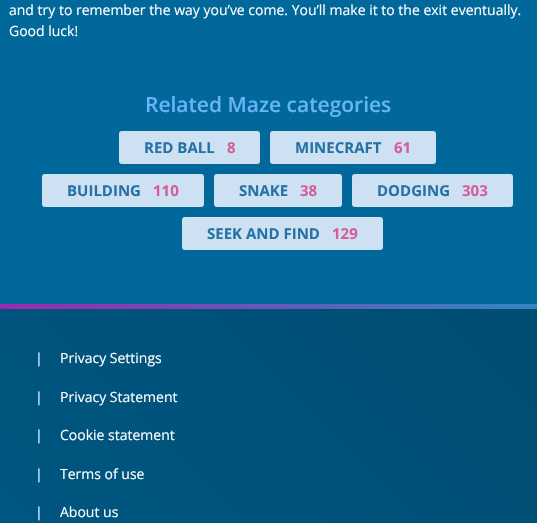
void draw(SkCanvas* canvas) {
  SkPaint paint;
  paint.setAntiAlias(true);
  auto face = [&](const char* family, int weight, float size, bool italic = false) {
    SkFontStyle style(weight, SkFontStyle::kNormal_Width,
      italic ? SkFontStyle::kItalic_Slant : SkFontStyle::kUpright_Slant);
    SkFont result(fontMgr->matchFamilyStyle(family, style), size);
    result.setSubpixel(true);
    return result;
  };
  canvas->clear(0xff00689a);
  paint.setColor(0xffcee1f3);
  canvas->drawRoundRect(SkRect::MakeXYWH(119, 131, 141, 33), 3, 3, paint);
  canvas->drawRoundRect(SkRect::MakeXYWH(270, 131, 166, 33), 3, 3, paint);
  canvas->drawRoundRect(SkRect::MakeXYWH(42, 174, 162, 33), 3, 3, paint);
  canvas->drawRoundRect(SkRect::MakeXYWH(214, 174, 128, 33), 3, 3, paint);
  canvas->drawRoundRect(SkRect::MakeXYWH(352, 174, 161, 33), 3, 3, paint);
  canvas->drawRoundRect(SkRect::MakeXYWH(182, 217, 201, 33), 3, 3, paint);
  {
    const SkColor colors[] = {0xff005a86, 0xff004d72};
    const float stops[] = {0, 1};
    const SkPoint ends[] = {{21, 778}, {516, 283}};
    paint.setShader(SkGradientShader::MakeLinear(ends, colors, stops, 2, SkTileMode::kClamp));
    paint.setAlpha(255);
  }
  canvas->drawRect(SkRect::MakeXYWH(0, 309, 537, 214), paint);
  {
    const SkColor colors[] = {0xff9c28b1, 0xff3187c6};
    const float stops[] = {0, 1};
    const SkPoint ends[] = {{133, 442}, {404, 171}};
    paint.setShader(SkGradientShader::MakeLinear(ends, colors, stops, 2, SkTileMode::kClamp));
    paint.setAlpha(255);
  }
  canvas->drawRect(SkRect::MakeXYWH(0, 304, 537, 5), paint);
  auto f0 = face("Open Sans", 400, 14);
  paint.setShader(nullptr);
  paint.setColor(0xffffffff);
  canvas->drawString("and try to remember the way you’ve come. You’ll make it to the exit eventually.", 9, 15, f0, paint);
  canvas->drawString("Good luck!", 9, 36, f0, paint);
  auto f1 = face("Open Sans", 600, 21);
  paint.setColor(0xff67b5f4);
  canvas->drawString("Related Maze categories", 145, 112, f1, paint);
  auto f2 = face("Open Sans", 700, 15);
  paint.setColor(0xff2572a6);
  canvas->drawString("RED BALL", 144, 153, f2, paint);
  paint.setColor(0xffd75c9a);
  canvas->drawString("8", 227, 153, f2, paint);
  paint.setColor(0xff2572a6);
  canvas->drawString("MINECRAFT", 295, 153, f2, paint);
  paint.setColor(0xffd75c9a);
  canvas->drawString("61", 394, 153, f2, paint);
  paint.setColor(0xff2572a6);
  canvas->drawString("BUILDING", 67, 196, f2, paint);
  paint.setColor(0xffd75c9a);
  canvas->drawString("110", 153, 196, f2, paint);
  paint.setColor(0xff2572a6);
  canvas->drawString("SNAKE", 239, 196, f2, paint);
  paint.setColor(0xffd75c9a);
  canvas->drawString("38", 300, 196, f2, paint);
  paint.setColor(0xff2572a6);
  canvas->drawString("DODGING", 377, 196, f2, paint);
  paint.setColor(0xffd75c9a);
  canvas->drawString("303", 462, 196, f2, paint);
  paint.setColor(0xff2572a6);
  canvas->drawString("SEEK AND FIND", 207, 239, f2, paint);
  paint.setColor(0xffd75c9a);
  canvas->drawString("129", 332, 239, f2, paint);
  auto f3 = face("Open Sans", 700, 14);
  paint.setColor(0xffaed2f3);
  canvas->drawString("|", 35, 363, f3, paint);
  paint.setColor(0xffffffff);
  canvas->drawString("Privacy Settings", 60, 363, f0, paint);
  paint.setColor(0xffaed2f3);
  canvas->drawString("|", 35, 402, f3, paint);
  paint.setColor(0xffffffff);
  canvas->drawString("Privacy Statement", 60, 402, f0, paint);
  paint.setColor(0xffaed2f3);
  canvas->drawString("|", 35, 440, f3, paint);
  paint.setColor(0xffffffff);
  canvas->drawString("Cookie statement", 60, 440, f0, paint);
  paint.setColor(0xffaed2f3);
  canvas->drawString("|", 35, 479, f3, paint);
  paint.setColor(0xffffffff);
  canvas->drawString("Terms of use", 60, 479, f0, paint);
  paint.setColor(0xffaed2f3);
  canvas->drawString("|", 35, 517, f3, paint);
  paint.setColor(0xffffffff);
  canvas->drawString("About us", 60, 517, f0, paint);
}
